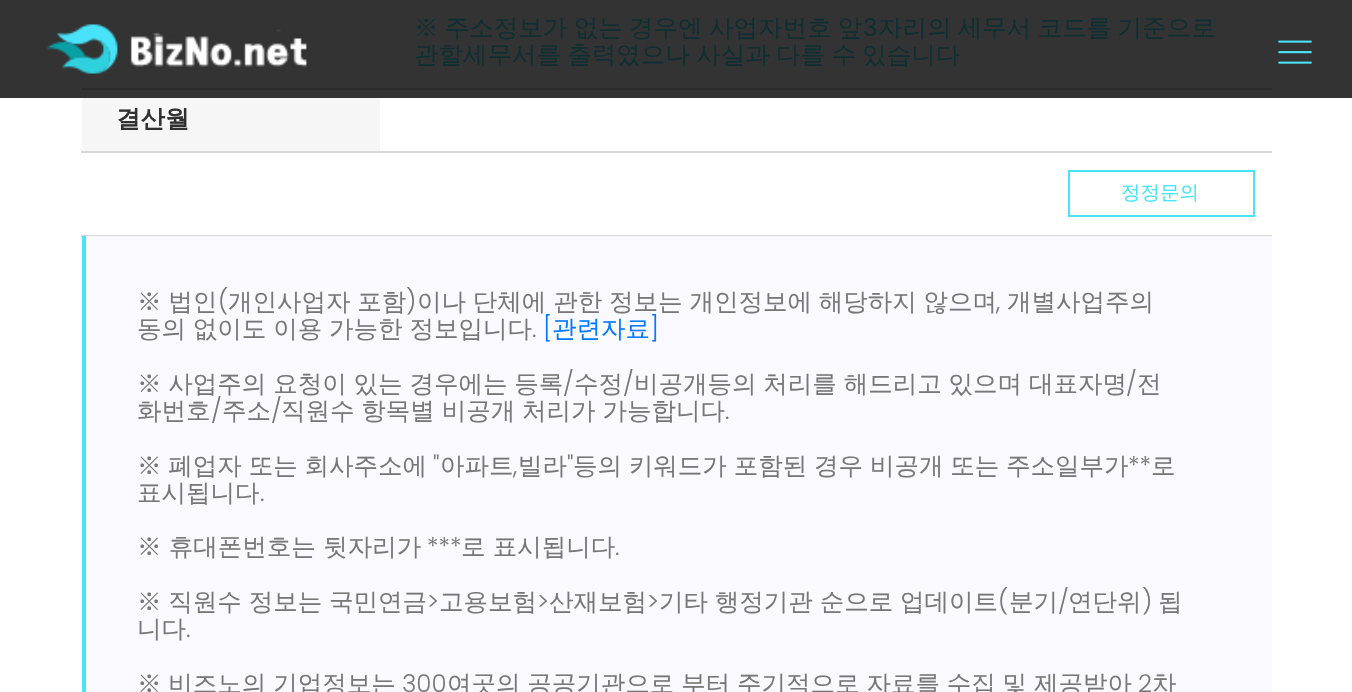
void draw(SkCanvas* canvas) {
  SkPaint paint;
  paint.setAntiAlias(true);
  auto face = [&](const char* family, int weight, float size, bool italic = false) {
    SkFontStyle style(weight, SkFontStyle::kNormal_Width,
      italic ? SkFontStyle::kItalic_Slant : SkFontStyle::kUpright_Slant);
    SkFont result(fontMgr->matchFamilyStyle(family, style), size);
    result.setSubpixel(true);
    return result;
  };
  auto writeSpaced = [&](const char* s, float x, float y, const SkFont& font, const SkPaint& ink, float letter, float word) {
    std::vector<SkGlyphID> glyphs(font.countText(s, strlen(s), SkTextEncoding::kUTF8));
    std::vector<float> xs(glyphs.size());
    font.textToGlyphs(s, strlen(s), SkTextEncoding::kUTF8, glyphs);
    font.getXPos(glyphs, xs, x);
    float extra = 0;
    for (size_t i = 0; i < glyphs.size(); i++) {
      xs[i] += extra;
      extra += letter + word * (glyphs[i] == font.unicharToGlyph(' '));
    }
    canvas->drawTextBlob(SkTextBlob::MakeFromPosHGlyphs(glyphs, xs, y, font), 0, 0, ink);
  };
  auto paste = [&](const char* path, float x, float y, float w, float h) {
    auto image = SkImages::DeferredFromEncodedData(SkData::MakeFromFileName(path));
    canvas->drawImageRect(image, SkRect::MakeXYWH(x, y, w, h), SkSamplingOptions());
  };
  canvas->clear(0xffffffff);
  {
    const struct { float x, y, w, h; SkColor color; } items[] = {
      {0, 0, 1352, 98, 0xff333333},
      {81, 88, 1191, 2, 0xff2b2b2b},
      {82, 98, 298, 53, 0xfff6f6f6},
      {81, 151, 1191, 2, 0xffd7d7d7},
      {81, 235, 1191, 2, 0xffd7d7d7},
    };
    for (auto [x, y, w, h, color] : items) {
      paint.setColor(color);
      canvas->drawRect(SkRect::MakeXYWH(x, y, w, h), paint);
    }
  }
  paint.setStroke(true);
  paint.setStrokeWidth(2);
  paint.setColor(0xff49e4fa);
  canvas->drawRect(SkRect::MakeXYWH(1069, 171, 185, 45), paint);
  paint.setStroke(false);
  paint.setColor(0xfff9f9ff);
  canvas->drawRect(SkRect::MakeXYWH(86, 236, 1186, 456), paint);
  paint.setColor(0xff49e4fa);
  canvas->drawRect(SkRect::MakeXYWH(82, 236, 4, 456), paint);
  paste("img/1.png", 47, 24, 260, 50);
  paste("img/2.png", 1278, 40, 34, 24);
  auto f0 = face("WenQuanYi Zen Hei", 500, 24.5f);
  paint.setColor(0xff0f2e32);
  writeSpaced("※ 주소정보가 없는 경우엔 사업자번호 앞", 414, 36, f0, paint, 0, -1);
  auto f1 = face("Poppins", 400, 24.5f);
  canvas->drawString("3", 863, 36, f1, paint);
  writeSpaced("자리의 세무서 코드를 기준으로", 878, 36, f0, paint, 0, -1);
  writeSpaced("관할세무서를 출력였으나 사실과 다를 수 있습니다", 414, 63, f0, paint, 0, -1);
  auto f2 = face("WenQuanYi Zen Hei", 700, 24.5f);
  paint.setColor(0xff303030);
  canvas->drawString("결산월", 116, 127, f2, paint);
  auto f3 = face("WenQuanYi Zen Hei", 500, 19.5f);
  paint.setColor(0xff49e4fa);
  canvas->drawString("정정문의", 1121, 199, f3, paint);
  paint.setColor(0xff777777);
  writeSpaced("※ 법인", 137, 310, f0, paint, 0, -0.5f);
  auto f4 = face("Poppins", 300, 24.5f);
  canvas->drawString("(", 218, 310, f4, paint);
  writeSpaced("개인사업자 포함", 228, 310, f0, paint, 0, -0.5f);
  canvas->drawString(")", 406, 310, f4, paint);
  writeSpaced("이나 단체에 관한 정보는 개인정보에 해당하지 않으며", 417, 310, f0, paint, 0, -0.5f);
  canvas->drawString(",", 996, 310, f4, paint);
  canvas->drawString("개별사업주의", 1007, 310, f0, paint);
  writeSpaced("동의 없이도 이용 가능한 정보입니다", 137, 337, f0, paint, 0, -0.5f);
  canvas->drawString(".", 532, 337, f4, paint);
  paint.setColor(0xff007bff);
  canvas->drawString("[", 543, 337, f4, paint);
  canvas->drawString("관련자료", 552, 337, f0, paint);
  canvas->drawString("]", 650, 337, f4, paint);
  paint.setColor(0xff777777);
  writeSpaced("※ 사업주의 요청이 있는 경우에는 등록", 137, 392, f0, paint, 0, -0.5f);
  canvas->drawString("/", 563, 392, f4, paint);
  canvas->drawString("수정", 574, 392, f0, paint);
  canvas->drawString("/", 623, 392, f4, paint);
  writeSpaced("비공개등의 처리를 해드리고 있으며 대표자명", 634, 392, f0, paint, 0, -0.5f);
  canvas->drawString("/", 1126, 392, f4, paint);
  canvas->drawString("전", 1137, 392, f0, paint);
  canvas->drawString("화번호", 137, 419, f0, paint);
  canvas->drawString("/", 211, 419, f4, paint);
  canvas->drawString("주소", 222, 419, f0, paint);
  canvas->drawString("/", 271, 419, f4, paint);
  writeSpaced("직원수 항목별 비공개 처리가 가능합니다", 281, 419, f0, paint, 0, -0.5f);
  canvas->drawString(".", 725, 419, f4, paint);
  writeSpaced("※ 폐업자 또는 회사주소에", 137, 474, f0, paint, 0, -0.5f);
  canvas->drawString("\"", 433, 474, f4, paint);
  canvas->drawString("아파트", 440, 474, f0, paint);
  canvas->drawString(",", 513, 474, f4, paint);
  canvas->drawString("빌라", 518, 474, f0, paint);
  canvas->drawString("\"", 567, 474, f4, paint);
  writeSpaced("등의 키워드가 포함된 경우 비공개 또는 주소일부가", 573, 474, f0, paint, 0, -0.5f);
  canvas->drawString("**", 1128, 474, f4, paint);
  canvas->drawString("로", 1151, 474, f0, paint);
  canvas->drawString("표시됩니다", 137, 501, f0, paint);
  canvas->drawString(".", 260, 501, f4, paint);
  canvas->drawString("※ 휴대폰번호는 뒷자리가", 137, 555, f0, paint);
  canvas->drawString("***", 427, 555, f4, paint);
  canvas->drawString("로 표시됩니다", 461, 555, f0, paint);
  canvas->drawString(".", 615, 555, f4, paint);
  writeSpaced("※ 직원수 정보는 국민연금", 137, 610, f0, paint, 0, -0.5f);
  canvas->drawString(">", 427, 610, f4, paint);
  canvas->drawString("고용보험", 439, 610, f0, paint);
  canvas->drawString(">", 537, 610, f4, paint);
  canvas->drawString("산재보험", 549, 610, f0, paint);
  canvas->drawString(">", 647, 610, f4, paint);
  writeSpaced("기타 행정기관 순으로 업데이트", 659, 610, f0, paint, 0, -0.5f);
  canvas->drawString("(", 998, 610, f4, paint);
  canvas->drawString("분기", 1009, 610, f0, paint);
  canvas->drawString("/", 1058, 610, f4, paint);
  canvas->drawString("연단위", 1068, 610, f0, paint);
  canvas->drawString(")", 1142, 610, f4, paint);
  canvas->drawString("됩", 1158, 610, f0, paint);
  canvas->drawString("니다", 137, 637, f0, paint);
  canvas->drawString(".", 186, 637, f4, paint);
  writeSpaced("※ 비즈노의 기업정보는", 137, 692, f0, paint, 0, -0.5f);
  canvas->drawString("300", 402, 692, f4, paint);
  writeSpaced("여곳의 공공기관으로 부터 주기적으로 자료를 수집 및 제공받아", 447, 692, f0, paint, 0, -0.5f);
  canvas->drawString("2", 1138, 692, f4, paint);
  canvas->drawString("차", 1152, 692, f0, paint);
}
